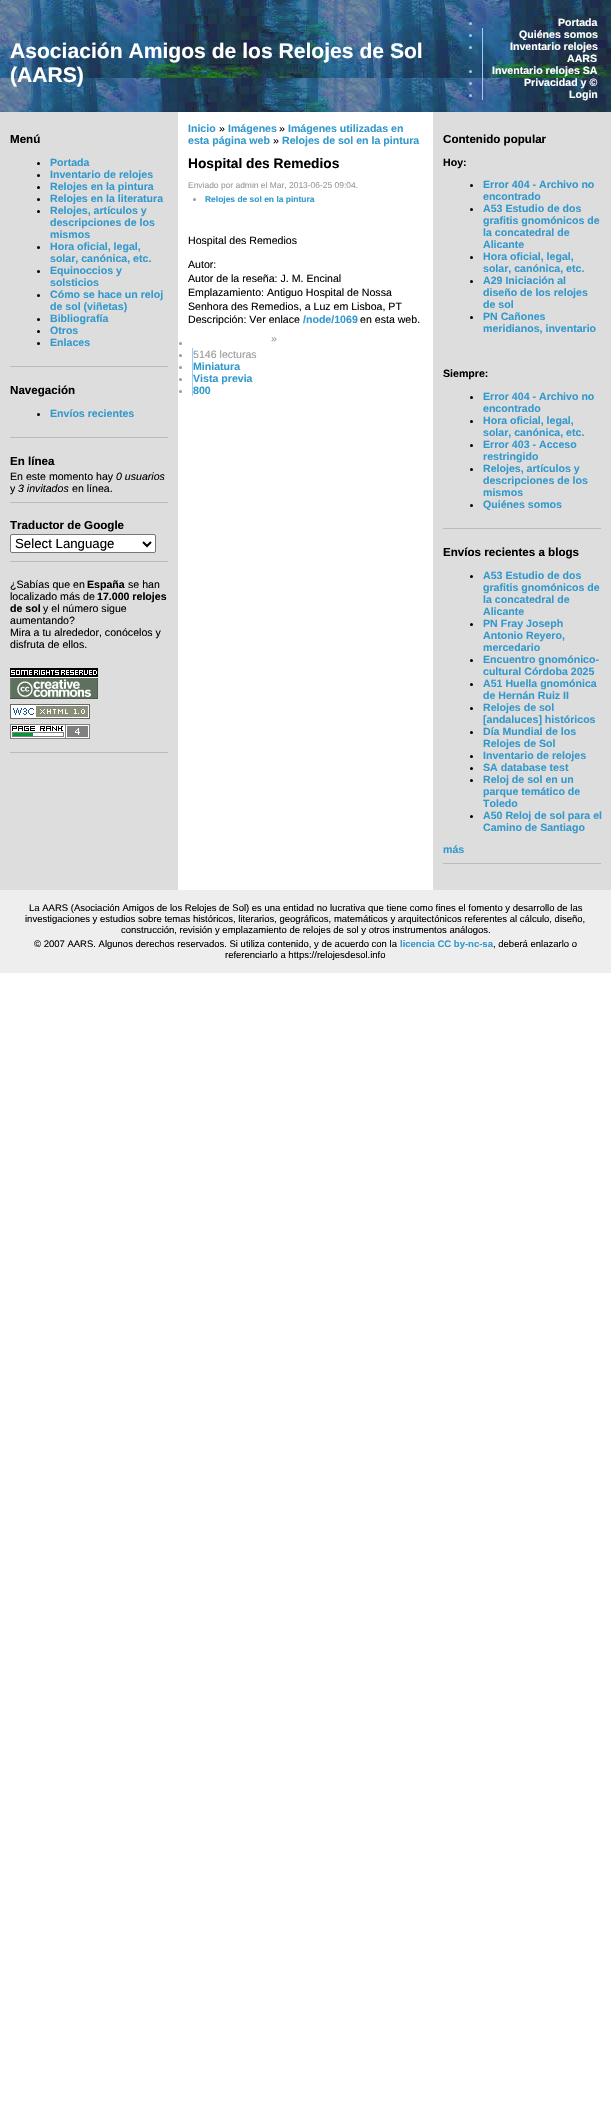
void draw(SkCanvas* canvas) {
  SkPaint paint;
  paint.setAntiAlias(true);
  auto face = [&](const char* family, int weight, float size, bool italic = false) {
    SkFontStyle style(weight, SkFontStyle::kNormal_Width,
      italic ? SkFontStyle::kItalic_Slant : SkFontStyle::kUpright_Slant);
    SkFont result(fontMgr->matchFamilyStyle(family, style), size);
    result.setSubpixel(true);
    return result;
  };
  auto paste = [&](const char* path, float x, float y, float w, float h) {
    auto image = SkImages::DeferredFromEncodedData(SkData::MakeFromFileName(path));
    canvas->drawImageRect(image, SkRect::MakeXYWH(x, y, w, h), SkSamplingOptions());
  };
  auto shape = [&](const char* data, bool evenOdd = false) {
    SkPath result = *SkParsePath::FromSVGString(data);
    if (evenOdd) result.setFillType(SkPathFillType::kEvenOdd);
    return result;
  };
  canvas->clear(0xffffffff);
  paste("img/1.png", 0, 0, 611, 112);
  paint.setColor(0xff99ccff);
  canvas->drawCircle(470.5f, 23.5f, 1.5f, paint);
  canvas->drawRect(SkRect::MakeXYWH(482, 28, 1, 72), paint);
  canvas->drawCircle(470.5f, 35.5f, 1.5f, paint);
  canvas->drawCircle(470.5f, 47.5f, 1.5f, paint);
  canvas->drawCircle(470.5f, 71.5f, 1.5f, paint);
  canvas->drawCircle(470.5f, 83.5f, 1.5f, paint);
  canvas->drawCircle(470.5f, 95.5f, 1.5f, paint);
  paint.setColor(0xffdddddd);
  canvas->drawRect(SkRect::MakeXYWH(0, 112, 178, 778), paint);
  paint.setColor(0xffbbbbbb);
  canvas->drawRect(SkRect::MakeXYWH(10, 366, 158, 1), paint);
  paint.setColor(0xff000000);
  canvas->drawCircle(38.5f, 163.5f, 1.5f, paint);
  canvas->drawCircle(38.5f, 175.5f, 1.5f, paint);
  canvas->drawCircle(38.5f, 187.5f, 1.5f, paint);
  canvas->drawCircle(38.5f, 199.5f, 1.5f, paint);
  canvas->drawCircle(38.5f, 211.5f, 1.5f, paint);
  canvas->drawCircle(38.5f, 247.5f, 1.5f, paint);
  canvas->drawCircle(38.5f, 271.5f, 1.5f, paint);
  canvas->drawCircle(38.5f, 295.5f, 1.5f, paint);
  canvas->drawCircle(38.5f, 319.5f, 1.5f, paint);
  canvas->drawCircle(38.5f, 331.5f, 1.5f, paint);
  canvas->drawCircle(38.5f, 343.5f, 1.5f, paint);
  paint.setColor(0xffbbbbbb);
  canvas->drawRect(SkRect::MakeXYWH(10, 437, 158, 1), paint);
  paint.setColor(0xff000000);
  canvas->drawCircle(38.5f, 414.5f, 1.5f, paint);
  paint.setColor(0xffbbbbbb);
  canvas->drawRect(SkRect::MakeXYWH(10, 502, 158, 1), paint);
  canvas->drawRect(SkRect::MakeXYWH(10, 561, 158, 1), paint);
  paint.setColor(0xffffffff);
  canvas->drawRoundRect(SkRect::MakeXYWH(10.5f, 534.5f, 145, 18), 1.5f, 1.5f, paint);
  paint.setStroke(true);
  paint.setStrokeWidth(1);
  paint.setColor(0xff767676);
  canvas->drawRoundRect(SkRect::MakeXYWH(10.5f, 534.5f, 145, 18), 1.5f, 1.5f, paint);
  paint.setStrokeWidth(2);
  paint.setColor(0xff000000);
  canvas->drawPath(shape("M143 542L147 546L151 542"), paint);
  paint.setStroke(false);
  paint.setColor(0xffbbbbbb);
  canvas->drawRect(SkRect::MakeXYWH(10, 752, 158, 1), paint);
  paste("img/2.png", 10, 668, 88, 31);
  paste("img/3.png", 10, 704, 80, 15);
  paste("img/4.png", 10, 724, 80, 15);
  paint.setColor(0xff999999);
  canvas->drawCircle(194.5f, 199.5f, 1.5f, paint);
  canvas->drawCircle(180.5f, 343.5f, 1.5f, paint);
  paint.setColor(0xff99ccff);
  canvas->drawRect(SkRect::MakeXYWH(192, 348, 1, 48), paint);
  paint.setColor(0xff999999);
  canvas->drawCircle(180.5f, 355.5f, 1.5f, paint);
  canvas->drawCircle(180.5f, 367.5f, 1.5f, paint);
  canvas->drawCircle(180.5f, 379.5f, 1.5f, paint);
  canvas->drawCircle(180.5f, 391.5f, 1.5f, paint);
  paint.setColor(0xffdddddd);
  canvas->drawRect(SkRect::MakeXYWH(433, 112, 178, 778), paint);
  paint.setColor(0xffbbbbbb);
  canvas->drawRect(SkRect::MakeXYWH(443, 528, 158, 1), paint);
  paint.setColor(0xff000000);
  canvas->drawCircle(471.5f, 185.5f, 1.5f, paint);
  canvas->drawCircle(471.5f, 209.5f, 1.5f, paint);
  canvas->drawCircle(471.5f, 257.5f, 1.5f, paint);
  canvas->drawCircle(471.5f, 281.5f, 1.5f, paint);
  canvas->drawCircle(471.5f, 317.5f, 1.5f, paint);
  canvas->drawCircle(471.5f, 397.5f, 1.5f, paint);
  canvas->drawCircle(471.5f, 421.5f, 1.5f, paint);
  canvas->drawCircle(471.5f, 445.5f, 1.5f, paint);
  canvas->drawCircle(471.5f, 469.5f, 1.5f, paint);
  canvas->drawCircle(471.5f, 505.5f, 1.5f, paint);
  paint.setColor(0xffbbbbbb);
  canvas->drawRect(SkRect::MakeXYWH(443, 863, 158, 1), paint);
  paint.setColor(0xff000000);
  canvas->drawCircle(471.5f, 576.5f, 1.5f, paint);
  canvas->drawCircle(471.5f, 624.5f, 1.5f, paint);
  canvas->drawCircle(471.5f, 660.5f, 1.5f, paint);
  canvas->drawCircle(471.5f, 684.5f, 1.5f, paint);
  canvas->drawCircle(471.5f, 708.5f, 1.5f, paint);
  canvas->drawCircle(471.5f, 732.5f, 1.5f, paint);
  canvas->drawCircle(471.5f, 756.5f, 1.5f, paint);
  canvas->drawCircle(471.5f, 768.5f, 1.5f, paint);
  canvas->drawCircle(471.5f, 780.5f, 1.5f, paint);
  canvas->drawCircle(471.5f, 816.5f, 1.5f, paint);
  paint.setColor(0xffeeeeee);
  canvas->drawRect(SkRect::MakeXYWH(0, 890, 611, 83), paint);
  auto f0 = face("Liberation Sans", 700, 21.1f);
  paint.setColor(0xffffffff);
  canvas->drawString("Asociación Amigos de los Relojes de Sol", 10, 58, f0, paint);
  canvas->drawString("(AARS)", 10, 82, f0, paint);
  auto f1 = face("Liberation Sans", 700, 10.6f);
  {
    const struct { const char* s; float x, y; } items[] = {
      {"Portada", 558, 26},
      {"Quiénes somos", 519, 38},
      {"Inventario relojes", 510, 50},
      {"AARS", 567, 62},
      {"Inventario relojes SA", 492, 74},
      {"Privacidad y ©", 524, 86},
      {"Login", 569, 98},
    };
    for (auto [s, x, y] : items) {
      canvas->drawString(s, x, y, f1, paint);
    }
  }
  auto f2 = face("Liberation Sans", 700, 11.6f);
  paint.setColor(0xff000000);
  canvas->drawString("Menú", 10, 143, f2, paint);
  paint.setColor(0xff3399cc);
  {
    const struct { const char* s; float x, y; } items[] = {
      {"Portada", 50, 166},
      {"Inventario de relojes", 50, 178},
      {"Relojes en la pintura", 50, 190},
      {"Relojes en la literatura", 50, 202},
      {"Relojes, artículos y", 50, 214},
      {"descripciones de los", 50, 226},
      {"mismos", 50, 238},
      {"Hora oficial, legal,", 50, 250},
      {"solar, canónica, etc.", 50, 262},
      {"Equinoccios y", 50, 274},
      {"solsticios", 50, 286},
      {"Cómo se hace un reloj", 50, 298},
      {"de sol (viñetas)", 50, 310},
      {"Bibliografía", 50, 322},
      {"Otros", 50, 334},
      {"Enlaces", 50, 346},
    };
    for (auto [s, x, y] : items) {
      canvas->drawString(s, x, y, f1, paint);
    }
  }
  paint.setColor(0xff000000);
  canvas->drawString("Navegación", 10, 394, f2, paint);
  paint.setColor(0xff3399cc);
  canvas->drawString("Envíos recientes", 50, 417, f1, paint);
  paint.setColor(0xff000000);
  canvas->drawString("En línea", 10, 465, f2, paint);
  auto f3 = face("Liberation Sans", 400, 10.6f);
  canvas->drawString("En este momento hay", 10, 480, f3, paint);
  auto f4 = face("Liberation Sans", 400, 10.6f, true);
  canvas->drawString("0 usuarios", 116, 480, f4, paint);
  canvas->drawString("y", 10, 492, f3, paint);
  canvas->drawString("3 invitados", 18, 492, f4, paint);
  canvas->drawString("en línea.", 72, 492, f3, paint);
  canvas->drawString("Traductor de Google", 10, 529, f2, paint);
  auto f5 = face("Liberation Sans", 400, 13.25f);
  canvas->drawString("Select Language", 15, 548, f5, paint);
  canvas->drawString("¿Sabías que en", 10, 588, f3, paint);
  canvas->drawString("España", 87, 588, f1, paint);
  canvas->drawString("se han", 128, 588, f3, paint);
  canvas->drawString("localizado más de", 10, 600, f3, paint);
  canvas->drawString("17.000 relojes", 97, 600, f1, paint);
  canvas->drawString("de sol", 10, 612, f1, paint);
  {
    const struct { const char* s; float x, y; } items[] = {
      {"y el número sigue", 43, 612},
      {"aumentando?", 10, 624},
      {"Mira a tu alrededor, conócelos y", 10, 636},
      {"disfruta de ellos.", 10, 648},
    };
    for (auto [s, x, y] : items) {
      canvas->drawString(s, x, y, f3, paint);
    }
  }
  paint.setColor(0xff3399cc);
  canvas->drawString("Inicio", 188, 132, f1, paint);
  paint.setColor(0xff000000);
  canvas->drawString("»", 219, 132, f3, paint);
  paint.setColor(0xff3399cc);
  canvas->drawString("Imágenes", 228, 132, f1, paint);
  paint.setColor(0xff000000);
  canvas->drawString("»", 279, 132, f3, paint);
  paint.setColor(0xff3399cc);
  canvas->drawString("Imágenes utilizadas en", 288, 132, f1, paint);
  canvas->drawString("esta página web", 188, 144, f1, paint);
  paint.setColor(0xff000000);
  canvas->drawString("»", 273, 144, f3, paint);
  paint.setColor(0xff3399cc);
  canvas->drawString("Relojes de sol en la pintura", 282, 144, f1, paint);
  auto f6 = face("Liberation Sans", 700, 13.75f);
  paint.setColor(0xff000000);
  canvas->drawString("Hospital des Remedios", 188, 168, f6, paint);
  auto f7 = face("Liberation Sans", 400, 8.45f);
  paint.setColor(0xff999999);
  canvas->drawString("Enviado por admin el Mar, 2013-06-25 09:04.", 188, 188, f7, paint);
  auto f8 = face("Liberation Sans", 700, 8.45f);
  paint.setColor(0xff3399cc);
  canvas->drawString("Relojes de sol en la pintura", 205, 202, f8, paint);
  paint.setColor(0xff000000);
  {
    const struct { const char* s; float x, y; } items[] = {
      {"Hospital des Remedios", 188, 244},
      {"Autor:", 188, 268},
      {"Autor de la reseña: J. M. Encinal", 188, 282},
      {"Emplazamiento: Antiguo Hospital de Nossa", 188, 296},
      {"Senhora des Remedios, a Luz em Lisboa, PT", 188, 310},
      {"Descripción: Ver enlace", 188, 323},
    };
    for (auto [s, x, y] : items) {
      canvas->drawString(s, x, y, f3, paint);
    }
  }
  paint.setColor(0xff3399cc);
  canvas->drawString("/node/1069", 303, 323, f1, paint);
  paint.setColor(0xff000000);
  canvas->drawString("en esta web.", 360, 323, f3, paint);
  paint.setColor(0xff999999);
  canvas->drawString("»", 271, 342, f3, paint);
  canvas->drawString("5146 lecturas", 193, 358, f3, paint);
  paint.setColor(0xff3399cc);
  {
    const struct { const char* s; float x, y; } items[] = {
      {"Miniatura", 193, 370},
      {"Vista previa", 193, 382},
      {"800", 193, 394},
    };
    for (auto [s, x, y] : items) {
      canvas->drawString(s, x, y, f1, paint);
    }
  }
  paint.setColor(0xff000000);
  canvas->drawString("Contenido popular", 443, 143, f2, paint);
  canvas->drawString("Hoy:", 443, 166, f1, paint);
  paint.setColor(0xff3399cc);
  {
    const struct { const char* s; float x, y; } items[] = {
      {"Error 404 - Archivo no", 483, 188},
      {"encontrado", 483, 200},
      {"A53 Estudio de dos", 483, 212},
      {"grafitis gnomónicos de", 483, 224},
      {"la concatedral de", 483, 236},
      {"Alicante", 483, 248},
      {"Hora oficial, legal,", 483, 260},
      {"solar, canónica, etc.", 483, 272},
      {"A29 Iniciación al", 483, 284},
      {"diseño de los relojes", 483, 296},
      {"de sol", 483, 308},
      {"PN Cañones", 483, 320},
      {"meridianos, inventario", 483, 332},
    };
    for (auto [s, x, y] : items) {
      canvas->drawString(s, x, y, f1, paint);
    }
  }
  paint.setColor(0xff000000);
  canvas->drawString("Siempre:", 443, 377, f1, paint);
  paint.setColor(0xff3399cc);
  {
    const struct { const char* s; float x, y; } items[] = {
      {"Error 404 - Archivo no", 483, 400},
      {"encontrado", 483, 412},
      {"Hora oficial, legal,", 483, 424},
      {"solar, canónica, etc.", 483, 436},
      {"Error 403 - Acceso", 483, 448},
      {"restringido", 483, 460},
      {"Relojes, artículos y", 483, 472},
      {"descripciones de los", 483, 484},
      {"mismos", 483, 496},
      {"Quiénes somos", 483, 508},
    };
    for (auto [s, x, y] : items) {
      canvas->drawString(s, x, y, f1, paint);
    }
  }
  paint.setColor(0xff000000);
  canvas->drawString("Envíos recientes a blogs", 443, 556, f2, paint);
  paint.setColor(0xff3399cc);
  {
    const struct { const char* s; float x, y; } items[] = {
      {"A53 Estudio de dos", 483, 579},
      {"grafitis gnomónicos de", 483, 591},
      {"la concatedral de", 483, 603},
      {"Alicante", 483, 615},
      {"PN Fray Joseph", 483, 627},
      {"Antonio Reyero,", 483, 639},
      {"mercedario", 483, 651},
      {"Encuentro gnomónico-", 483, 663},
      {"cultural Córdoba 2025", 483, 675},
      {"A51 Huella gnomónica", 483, 687},
      {"de Hernán Ruiz II", 483, 699},
      {"Relojes de sol", 483, 711},
      {"[andaluces] históricos", 483, 723},
      {"Día Mundial de los", 483, 735},
      {"Relojes de Sol", 483, 747},
      {"Inventario de relojes", 483, 759},
      {"SA database test", 483, 771},
      {"Reloj de sol en un", 483, 783},
      {"parque temático de", 483, 795},
      {"Toledo", 483, 807},
      {"A50 Reloj de sol para el", 483, 819},
      {"Camino de Santiago", 483, 831},
      {"más", 443, 853},
    };
    for (auto [s, x, y] : items) {
      canvas->drawString(s, x, y, f1, paint);
    }
  }
  auto f9 = face("Liberation Sans", 400, 9.5f);
  paint.setColor(0xff000000);
  {
    const struct { const char* s; float x, y; } items[] = {
      {"La AARS (Asociación Amigos de los Relojes de Sol) es una entidad no lucrativa que tiene como fines el fomento y desarrollo de las", 29, 911},
      {"investigaciones y estudios sobre temas históricos, literarios, geográficos, matemáticos y arquitectónicos referentes al cálculo, diseño,", 25, 922},
      {"construcción, revisión y emplazamiento de relojes de sol y otros instrumentos análogos.", 121, 933},
      {"© 2007 AARS. Algunos derechos reservados. Si utiliza contenido, y de acuerdo con la", 34, 947},
    };
    for (auto [s, x, y] : items) {
      canvas->drawString(s, x, y, f9, paint);
    }
  }
  auto f10 = face("Liberation Sans", 700, 9.5f);
  paint.setColor(0xff3399cc);
  canvas->drawString("licencia CC by-nc-sa", 400, 947, f10, paint);
  paint.setColor(0xff000000);
  canvas->drawString(", deberá enlazarlo o", 493, 947, f9, paint);
  canvas->drawString("referenciarlo a https://relojesdesol.info", 225, 958, f9, paint);
}
